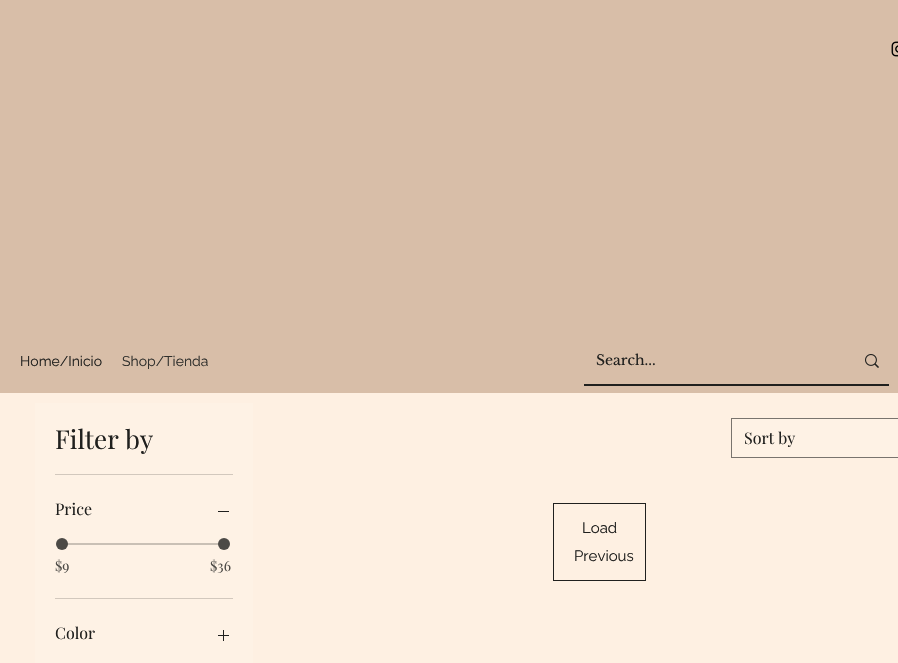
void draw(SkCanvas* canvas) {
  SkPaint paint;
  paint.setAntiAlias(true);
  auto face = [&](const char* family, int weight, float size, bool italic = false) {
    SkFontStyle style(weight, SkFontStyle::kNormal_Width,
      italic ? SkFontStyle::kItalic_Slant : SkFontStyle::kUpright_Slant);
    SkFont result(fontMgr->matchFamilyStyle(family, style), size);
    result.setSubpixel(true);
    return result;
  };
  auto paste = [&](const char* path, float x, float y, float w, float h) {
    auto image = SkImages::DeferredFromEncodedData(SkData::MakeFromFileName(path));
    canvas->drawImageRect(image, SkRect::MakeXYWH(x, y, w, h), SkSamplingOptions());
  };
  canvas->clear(0xfffef0e2);
  paint.setColor(0xffd8bea8);
  canvas->drawRect(SkRect::MakeXYWH(0, 0, 898, 393), paint);
  paste("img/1.png", 891, 41, 7, 16);
  paint.setColor(0xff20201e);
  canvas->drawRect(SkRect::MakeXYWH(584, 384, 305, 2), paint);
  paste("img/2.png", 865, 354, 14, 14);
  {
    const struct { float x, y, w, h; SkColor color; } items[] = {
      {35, 403, 218, 260, 0xfffef2e5},
      {55, 474, 178, 1, 0xffd2c8bd},
      {55, 598, 178, 1, 0xffd2c8bd},
      {218, 511, 11, 1, 0xff20201e},
      {61, 543, 162, 2, 0xffc9c0b5},
    };
    for (auto [x, y, w, h, color] : items) {
      paint.setColor(color);
      canvas->drawRect(SkRect::MakeXYWH(x, y, w, h), paint);
    }
  }
  paint.setColor(0xff4c4a46);
  canvas->drawCircle(62, 544, 6, paint);
  canvas->drawCircle(224, 544, 6, paint);
  paste("img/3.png", 218, 630, 11, 11);
  paint.setColor(0xfffef2e5);
  canvas->drawRect(SkRect::MakeXYWH(731.5f, 418.5f, 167, 39), paint);
  paint.setStroke(true);
  paint.setStrokeWidth(1);
  paint.setColor(0xff79746e);
  canvas->drawRect(SkRect::MakeXYWH(731.5f, 418.5f, 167, 39), paint);
  paint.setColor(0xff20201e);
  canvas->drawRect(SkRect::MakeXYWH(553.5f, 503.5f, 92, 77), paint);
  auto f0 = face("Raleway", 400, 14);
  paint.setStroke(false);
  canvas->drawString("Home/Inicio", 20, 366, f0, paint);
  paint.setColor(0xff2f2f2c);
  canvas->drawString("Shop/Tienda", 122, 366, f0, paint);
  auto f1 = face("Libre Baskerville", 400, 14);
  paint.setColor(0xff20201e);
  canvas->drawString("Search...", 596, 365, f1, paint);
  auto f2 = face("Playfair Display", 400, 26);
  canvas->drawString("Filter by", 55, 449, f2, paint);
  auto f3 = face("Playfair Display", 400, 16);
  canvas->drawString("Price", 55, 515, f3, paint);
  auto f4 = face("Playfair Display", 400, 14);
  paint.setColor(0xff4c4a46);
  canvas->drawString("$9", 55, 571, f4, paint);
  canvas->drawString("$36", 210, 571, f4, paint);
  paint.setColor(0xff20201e);
  canvas->drawString("Color", 55, 639, f3, paint);
  canvas->drawString("Sort by", 744, 444, f3, paint);
  auto f5 = face("Raleway", 400, 15);
  canvas->drawString("Load", 582, 533, f5, paint);
  canvas->drawString("Previous", 574, 561, f5, paint);
}
